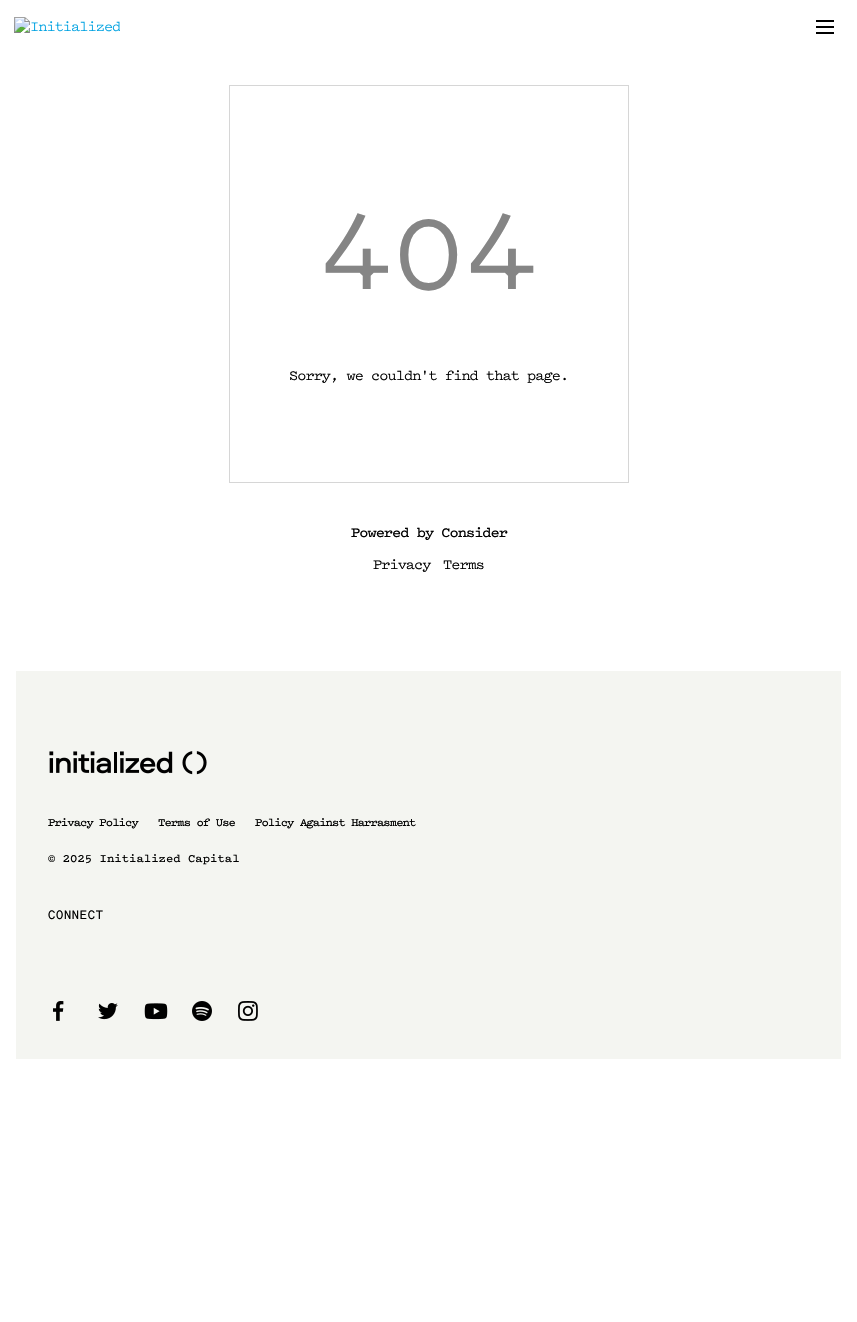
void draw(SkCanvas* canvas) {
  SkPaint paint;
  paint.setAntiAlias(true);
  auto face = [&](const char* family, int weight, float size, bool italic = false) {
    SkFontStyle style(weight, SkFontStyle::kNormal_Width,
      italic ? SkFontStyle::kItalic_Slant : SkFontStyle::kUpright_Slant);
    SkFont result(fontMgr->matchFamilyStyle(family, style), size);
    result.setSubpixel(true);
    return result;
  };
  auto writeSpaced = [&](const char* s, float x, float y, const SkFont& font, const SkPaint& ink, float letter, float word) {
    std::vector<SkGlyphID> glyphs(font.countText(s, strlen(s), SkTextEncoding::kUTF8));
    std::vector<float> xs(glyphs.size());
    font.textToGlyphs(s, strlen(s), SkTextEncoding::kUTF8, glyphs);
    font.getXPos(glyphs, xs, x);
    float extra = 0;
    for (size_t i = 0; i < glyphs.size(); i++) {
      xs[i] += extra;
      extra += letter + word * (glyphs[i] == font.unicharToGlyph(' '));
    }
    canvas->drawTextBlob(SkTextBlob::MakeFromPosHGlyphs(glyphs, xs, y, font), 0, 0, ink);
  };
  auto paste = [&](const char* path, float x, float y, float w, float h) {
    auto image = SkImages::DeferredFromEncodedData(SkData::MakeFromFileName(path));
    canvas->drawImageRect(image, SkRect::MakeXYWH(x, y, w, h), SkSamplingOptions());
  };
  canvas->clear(0xffffffff);
  paste("img/1.png", 14, 17, 106, 16);
  paste("img/2.png", 816, 20, 18, 14);
  paint.setStroke(true);
  paint.setStrokeWidth(1);
  paint.setColor(0xffd6d6d6);
  canvas->drawRect(SkRect::MakeXYWH(229.5f, 85.5f, 399, 397), paint);
  paint.setStroke(false);
  paint.setColor(0xfff4f5f1);
  canvas->drawRect(SkRect::MakeXYWH(16, 671, 825, 388), paint);
  paste("img/3.png", 49, 751, 158, 24);
  paste("img/4.png", 53, 1001, 11, 20);
  paste("img/5.png", 98, 1003, 20, 17);
  paste("img/6.png", 144, 1003, 24, 17);
  paste("img/7.png", 192, 1001, 20, 20);
  paste("img/8.png", 238, 1001, 20, 20);
  auto f0 = face("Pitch", 500, 120);
  paint.setColor(0xff858585);
  writeSpaced("404", 319, 289, f0, paint, -1, 0);
  auto f1 = face("Pitch", 500, 15);
  paint.setColor(0xff000000);
  writeSpaced("Sorry, we couldn't find that page.", 289, 380, f1, paint, -1, 0);
  auto f2 = face("Pitch", 600, 15);
  writeSpaced("Powered by Consider", 351, 537, f2, paint, -1, 0);
  writeSpaced("Privacy", 373, 569, f1, paint, -1, 0);
  writeSpaced("Terms", 443, 569, f1, paint, -1, 0);
  auto f3 = face("Pitch", 600, 12);
  {
    const struct { const char* s; float x, y; } items[] = {
      {"Privacy Policy", 48, 826},
      {"Terms of Use", 158, 826},
      {"Policy Against Harrasment", 255, 826},
    };
    for (auto [s, x, y] : items) {
      writeSpaced(s, x, y, f3, paint, -0.95f, 0);
    }
  }
  canvas->drawString("© 2025 Initialized Capital", 48, 862, f3, paint);
  auto f4 = face("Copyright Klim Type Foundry", 400, 12);
  writeSpaced("CONNECT", 48, 919, f4, paint, 0.75f, 0);
}
